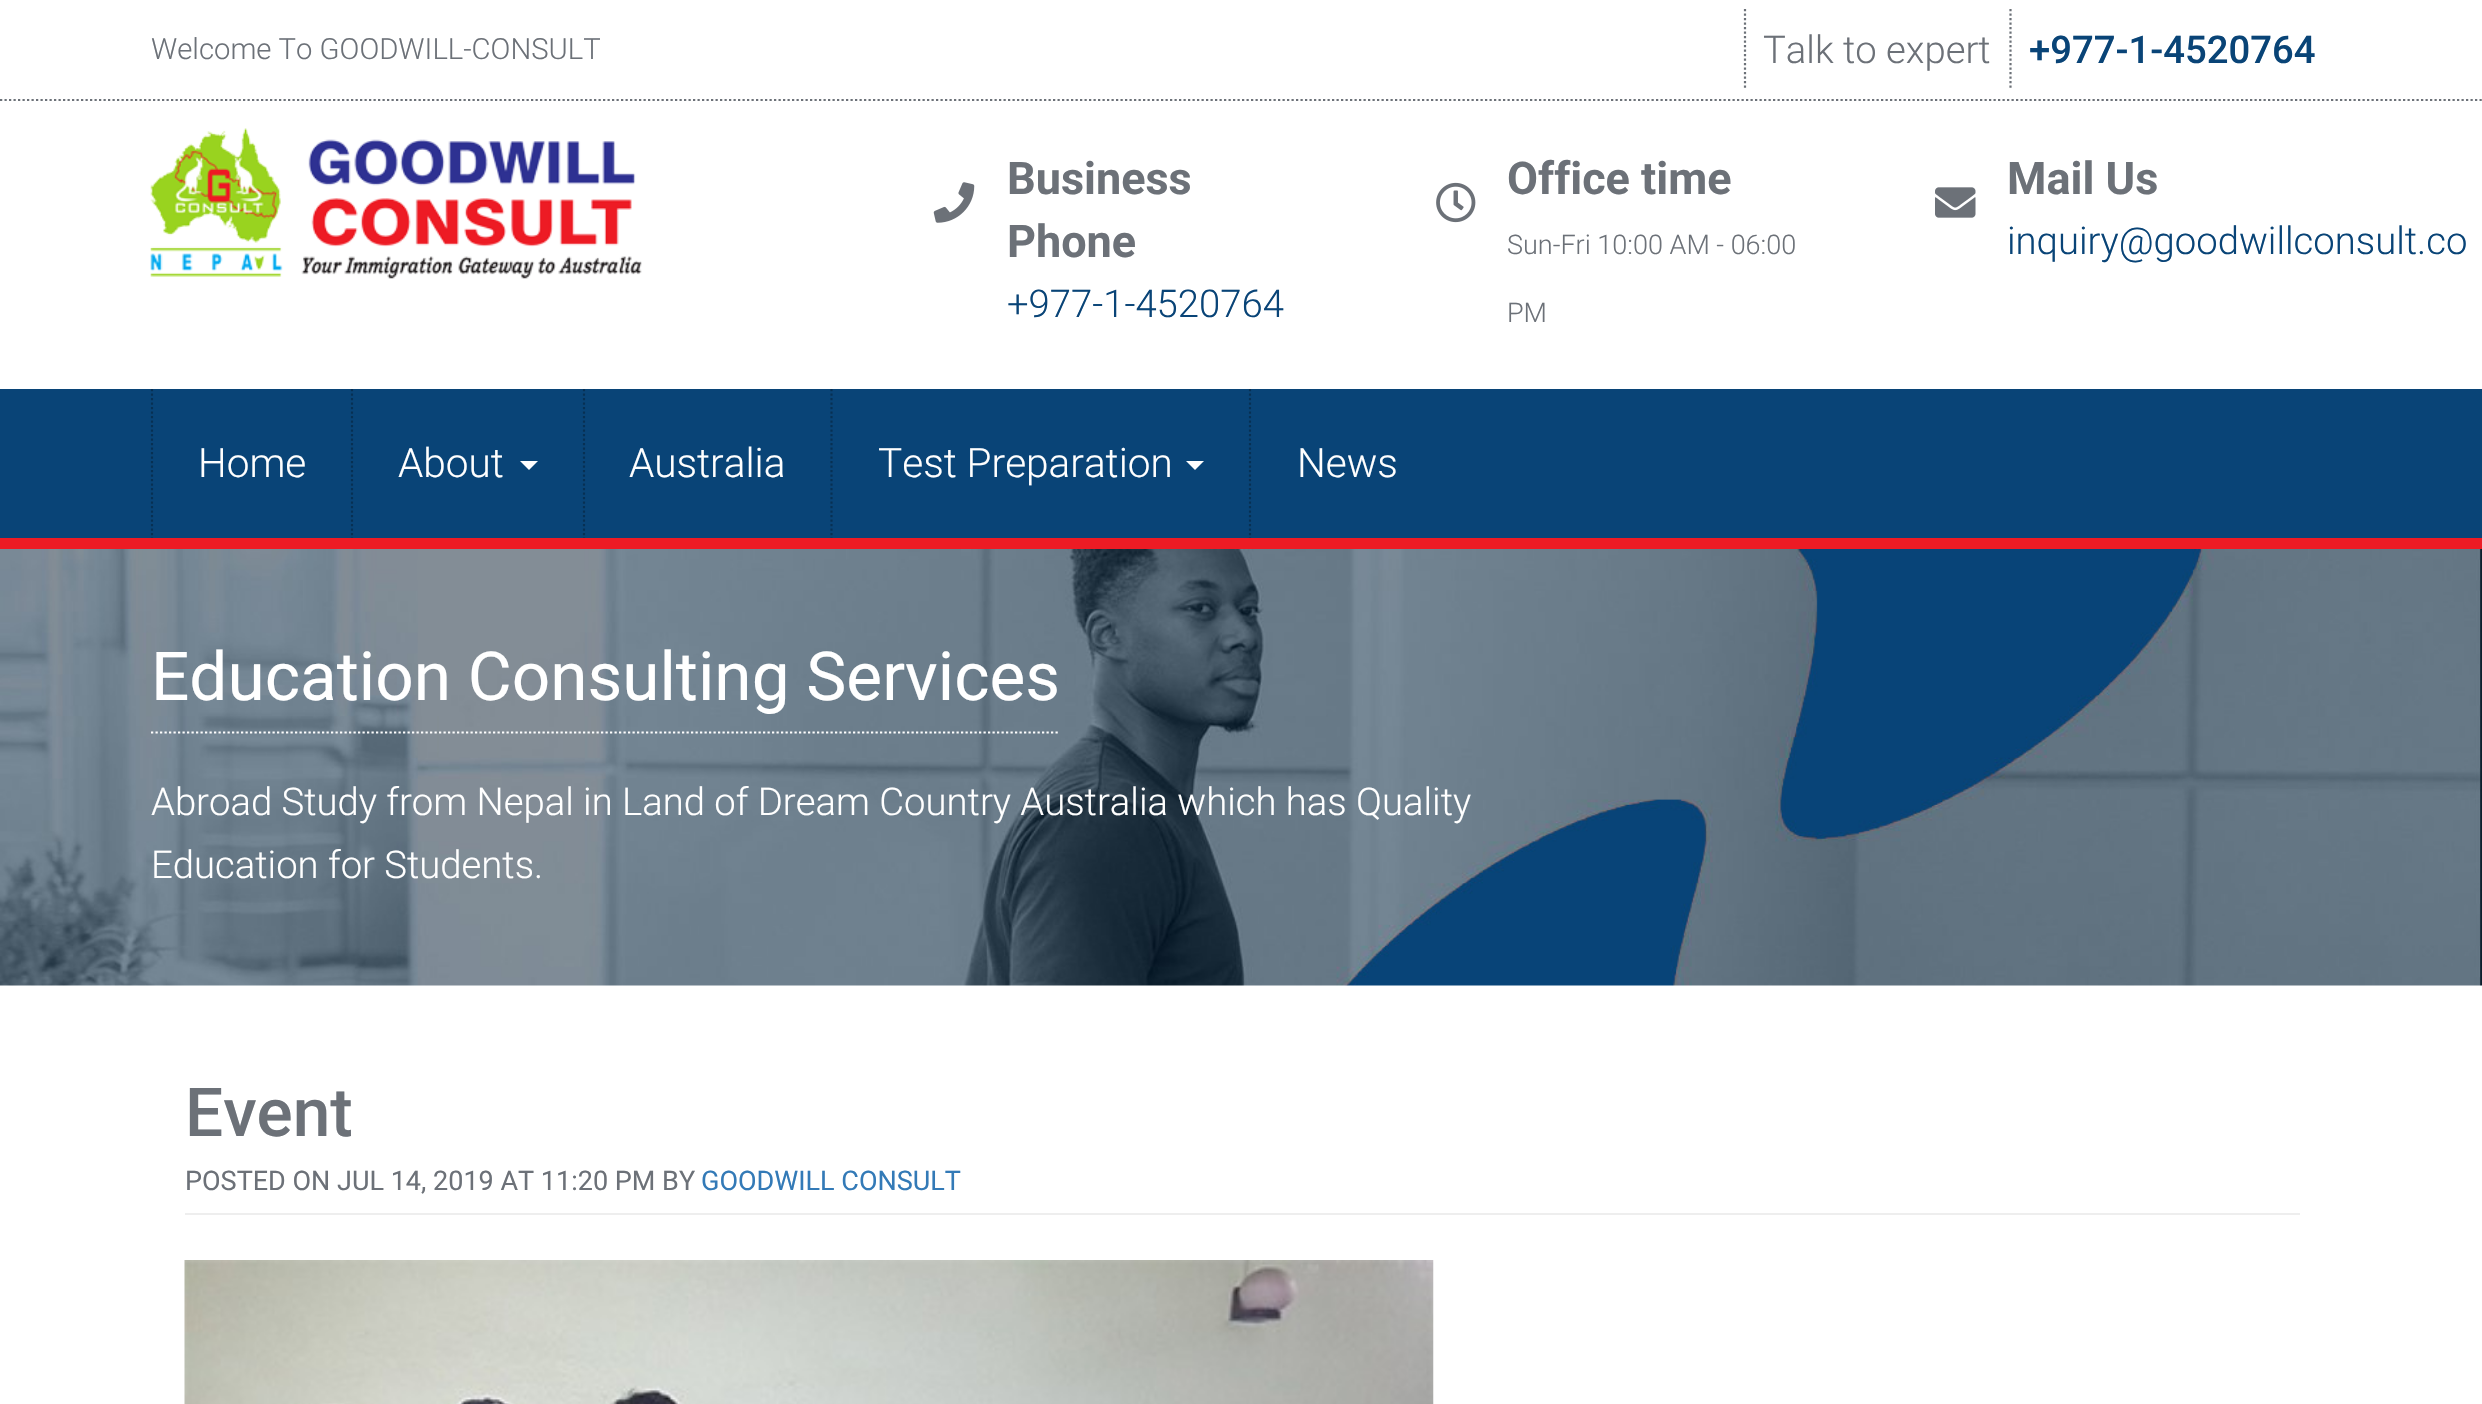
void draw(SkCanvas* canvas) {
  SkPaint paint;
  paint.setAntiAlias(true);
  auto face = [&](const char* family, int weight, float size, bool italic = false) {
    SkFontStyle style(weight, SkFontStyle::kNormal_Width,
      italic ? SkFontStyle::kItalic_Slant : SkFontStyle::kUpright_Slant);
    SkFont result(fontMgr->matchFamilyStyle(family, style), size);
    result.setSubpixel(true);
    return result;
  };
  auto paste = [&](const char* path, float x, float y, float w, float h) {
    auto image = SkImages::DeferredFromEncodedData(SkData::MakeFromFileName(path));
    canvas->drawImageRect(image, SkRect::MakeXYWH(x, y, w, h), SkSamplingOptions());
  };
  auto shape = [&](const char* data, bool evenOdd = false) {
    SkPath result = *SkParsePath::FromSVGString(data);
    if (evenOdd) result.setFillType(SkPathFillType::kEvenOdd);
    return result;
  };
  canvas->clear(0xffffffff);
  paint.setStroke(true);
  paint.setStrokeWidth(2.2f);
  paint.setColor(0xff6c7178);
  paint.setPathEffect(SkDashPathEffect::Make({{2.25f, 2.25f}}, 0));
  canvas->drawPath(shape("M0 100H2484"), paint);
  paint.setPathEffect(nullptr);
  paint.setPathEffect(SkDashPathEffect::Make({{2.25f, 2.25f}}, 0));
  canvas->drawPath(shape("M1745 9V90"), paint);
  paint.setPathEffect(nullptr);
  paint.setPathEffect(SkDashPathEffect::Make({{2.25f, 2.25f}}, 0));
  canvas->drawPath(shape("M2010.5 9V90"), paint);
  paint.setPathEffect(nullptr);
  paste("img/1.png", 150, 128, 492, 151);
  paste("img/2.png", 933, 182, 42, 41);
  paste("img/3.png", 1436, 182, 40, 41);
  paste("img/4.png", 1935, 187, 41, 31);
  paint.setStroke(false);
  paint.setColor(0xff094477);
  canvas->drawRect(SkRect::MakeXYWH(0, 389, 2482, 149), paint);
  paint.setColor(0xffed1b24);
  canvas->drawRect(SkRect::MakeXYWH(0, 538, 2482, 11), paint);
  paint.setStroke(true);
  paint.setColor(0xff073053);
  paint.setPathEffect(SkDashPathEffect::Make({{2.25f, 2.25f}}, 0));
  canvas->drawPath(shape("M152 389V538"), paint);
  paint.setPathEffect(nullptr);
  paint.setPathEffect(SkDashPathEffect::Make({{2.25f, 2.25f}}, 0));
  canvas->drawPath(shape("M352 389V538"), paint);
  paint.setPathEffect(nullptr);
  paint.setStroke(false);
  paint.setColor(0xffffffff);
  canvas->drawPath(shape("M520 461H538L529 470Z"), paint);
  paint.setStroke(true);
  paint.setColor(0xff073053);
  paint.setPathEffect(SkDashPathEffect::Make({{2.25f, 2.25f}}, 0));
  canvas->drawPath(shape("M584 389V538"), paint);
  paint.setPathEffect(nullptr);
  paint.setPathEffect(SkDashPathEffect::Make({{2.25f, 2.25f}}, 0));
  canvas->drawPath(shape("M831.5 389V538"), paint);
  paint.setPathEffect(nullptr);
  paint.setStroke(false);
  paint.setColor(0xffffffff);
  canvas->drawPath(shape("M1186 461H1204L1195 470Z"), paint);
  paint.setStroke(true);
  paint.setColor(0xff073053);
  paint.setPathEffect(SkDashPathEffect::Make({{2.25f, 2.25f}}, 0));
  canvas->drawPath(shape("M1250 389V538"), paint);
  paint.setPathEffect(nullptr);
  paste("img/5.png", 0, 549, 2482, 437);
  paint.setColor(0xffffffff);
  paint.setPathEffect(SkDashPathEffect::Make({{2.25f, 2.25f}}, 0));
  canvas->drawPath(shape("M151 732.5H1060"), paint);
  paint.setPathEffect(nullptr);
  paint.setStroke(false);
  paint.setColor(0xffeeeeee);
  canvas->drawRect(SkRect::MakeXYWH(185, 1213, 2115, 2), paint);
  paste("img/6.png", 184, 1260, 1250, 144);
  auto f0 = face("Roboto", 300, 29.25f);
  paint.setColor(0xff6c7178);
  canvas->drawString("Welcome To GOODWILL-CONSULT", 151, 59, f0, paint);
  auto f1 = face("Roboto", 300, 38.25f);
  canvas->drawString("Talk to expert", 1763, 63, f1, paint);
  auto f2 = face("Roboto", 500, 38.25f);
  paint.setColor(0xff094477);
  canvas->drawString("+977-1-4520764", 2029, 63, f2, paint);
  auto f3 = face("Roboto", 700, 45);
  paint.setColor(0xff6c7178);
  canvas->drawString("Business", 1007, 194, f3, paint);
  canvas->drawString("Phone", 1007, 257, f3, paint);
  paint.setColor(0xff094477);
  canvas->drawString("+977-1-4520764", 1007, 317, f1, paint);
  paint.setColor(0xff6c7178);
  canvas->drawString("Office time", 1507, 194, f3, paint);
  auto f4 = face("Roboto", 300, 27);
  canvas->drawString("Sun-Fri 10:00 AM - 06:00", 1507, 254, f4, paint);
  canvas->drawString("PM", 1507, 322, f4, paint);
  canvas->drawString("Mail Us", 2007, 194, f3, paint);
  paint.setColor(0xff094477);
  canvas->drawString("inquiry@goodwillconsult.co", 2007, 254, f1, paint);
  auto f5 = face("Roboto", 300, 40.5f);
  paint.setColor(0xffffffff);
  {
    const struct { const char* s; float x, y; } items[] = {
      {"Home", 198, 477},
      {"About", 398, 477},
      {"Australia", 629, 477},
      {"Test Preparation", 878, 477},
      {"News", 1297, 477},
    };
    for (auto [s, x, y] : items) {
      canvas->drawString(s, x, y, f5, paint);
    }
  }
  auto f6 = face("Roboto", 400, 67.5f);
  canvas->drawString("Education Consulting Services", 151, 700, f6, paint);
  canvas->drawString("Abroad Study from Nepal in Land of Dream Country Australia which has Quality", 151, 815, f1, paint);
  canvas->drawString("Education for Students.", 151, 878, f1, paint);
  auto f7 = face("Roboto", 500, 67.5f);
  paint.setColor(0xff6c7178);
  canvas->drawString("Event", 185, 1136, f7, paint);
  auto f8 = face("Roboto", 400, 27);
  canvas->drawString("POSTED ON JUL 14, 2019 AT 11:20 PM BY", 185, 1190, f8, paint);
  paint.setColor(0xff337ab7);
  canvas->drawString("GOODWILL CONSULT", 701, 1190, f8, paint);
}
